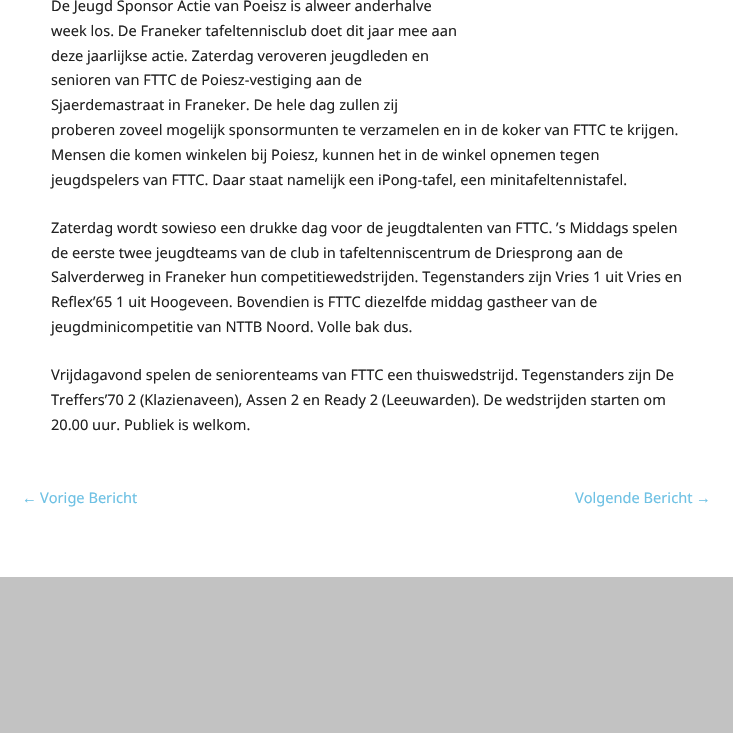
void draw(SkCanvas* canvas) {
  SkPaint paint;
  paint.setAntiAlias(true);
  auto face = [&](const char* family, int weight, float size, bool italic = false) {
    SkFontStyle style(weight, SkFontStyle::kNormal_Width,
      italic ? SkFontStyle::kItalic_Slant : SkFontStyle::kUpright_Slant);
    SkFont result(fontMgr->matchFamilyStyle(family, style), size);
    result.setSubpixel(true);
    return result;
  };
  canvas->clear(0xffffffff);
  paint.setColor(0xffc2c2c2);
  canvas->drawRect(SkRect::MakeXYWH(0, 577, 733, 156), paint);
  auto f0 = face("Noto Sans", 400, 14.6f);
  paint.setColor(0xff222222);
  {
    const struct { const char* s; float x, y; } items[] = {
      {"De Jeugd Sponsor Actie van Poeisz is alweer anderhalve", 51, 11},
      {"week los. De Franeker tafeltennisclub doet dit jaar mee aan", 51, 36},
      {"deze jaarlijkse actie. Zaterdag veroveren jeugdleden en", 51, 61},
      {"senioren van FTTC de Poiesz-vestiging aan de", 51, 85},
      {"Sjaerdemastraat in Franeker. De hele dag zullen zij", 51, 110},
      {"proberen zoveel mogelijk sponsormunten te verzamelen en in de koker van FTTC te krijgen.", 51, 135},
      {"Mensen die komen winkelen bij Poiesz, kunnen het in de winkel opnemen tegen", 51, 160},
      {"jeugdspelers van FTTC. Daar staat namelijk een iPong-tafel, een minitafeltennistafel.", 51, 185},
      {"Zaterdag wordt sowieso een drukke dag voor de jeugdtalenten van FTTC. ’s Middags spelen", 51, 233},
      {"de eerste twee jeugdteams van de club in tafeltenniscentrum de Driesprong aan de", 51, 258},
      {"Salverderweg in Franeker hun competitiewedstrijden. Tegenstanders zijn Vries 1 uit Vries en", 51, 282},
      {"Reflex’65 1 uit Hoogeveen. Bovendien is FTTC diezelfde middag gastheer van de", 51, 307},
      {"jeugdminicompetitie van NTTB Noord. Volle bak dus.", 51, 332},
      {"Vrijdagavond spelen de seniorenteams van FTTC een thuiswedstrijd. Tegenstanders zijn De", 51, 380},
      {"Treffers’70 2 (Klazienaveen), Assen 2 en Ready 2 (Leeuwarden). De wedstrijden starten om", 51, 405},
      {"20.00 uur. Publiek is welkom.", 51, 430},
    };
    for (auto [s, x, y] : items) {
      canvas->drawString(s, x, y, f0, paint);
    }
  }
  auto f1 = face("Liberation Sans", 400, 14.6f);
  paint.setColor(0xff6ec1e4);
  canvas->drawString("←", 22, 503, f1, paint);
  canvas->drawString("Vorige Bericht", 40, 503, f0, paint);
  canvas->drawString("Volgende Bericht", 575, 503, f0, paint);
  canvas->drawString("→", 696, 503, f1, paint);
}
